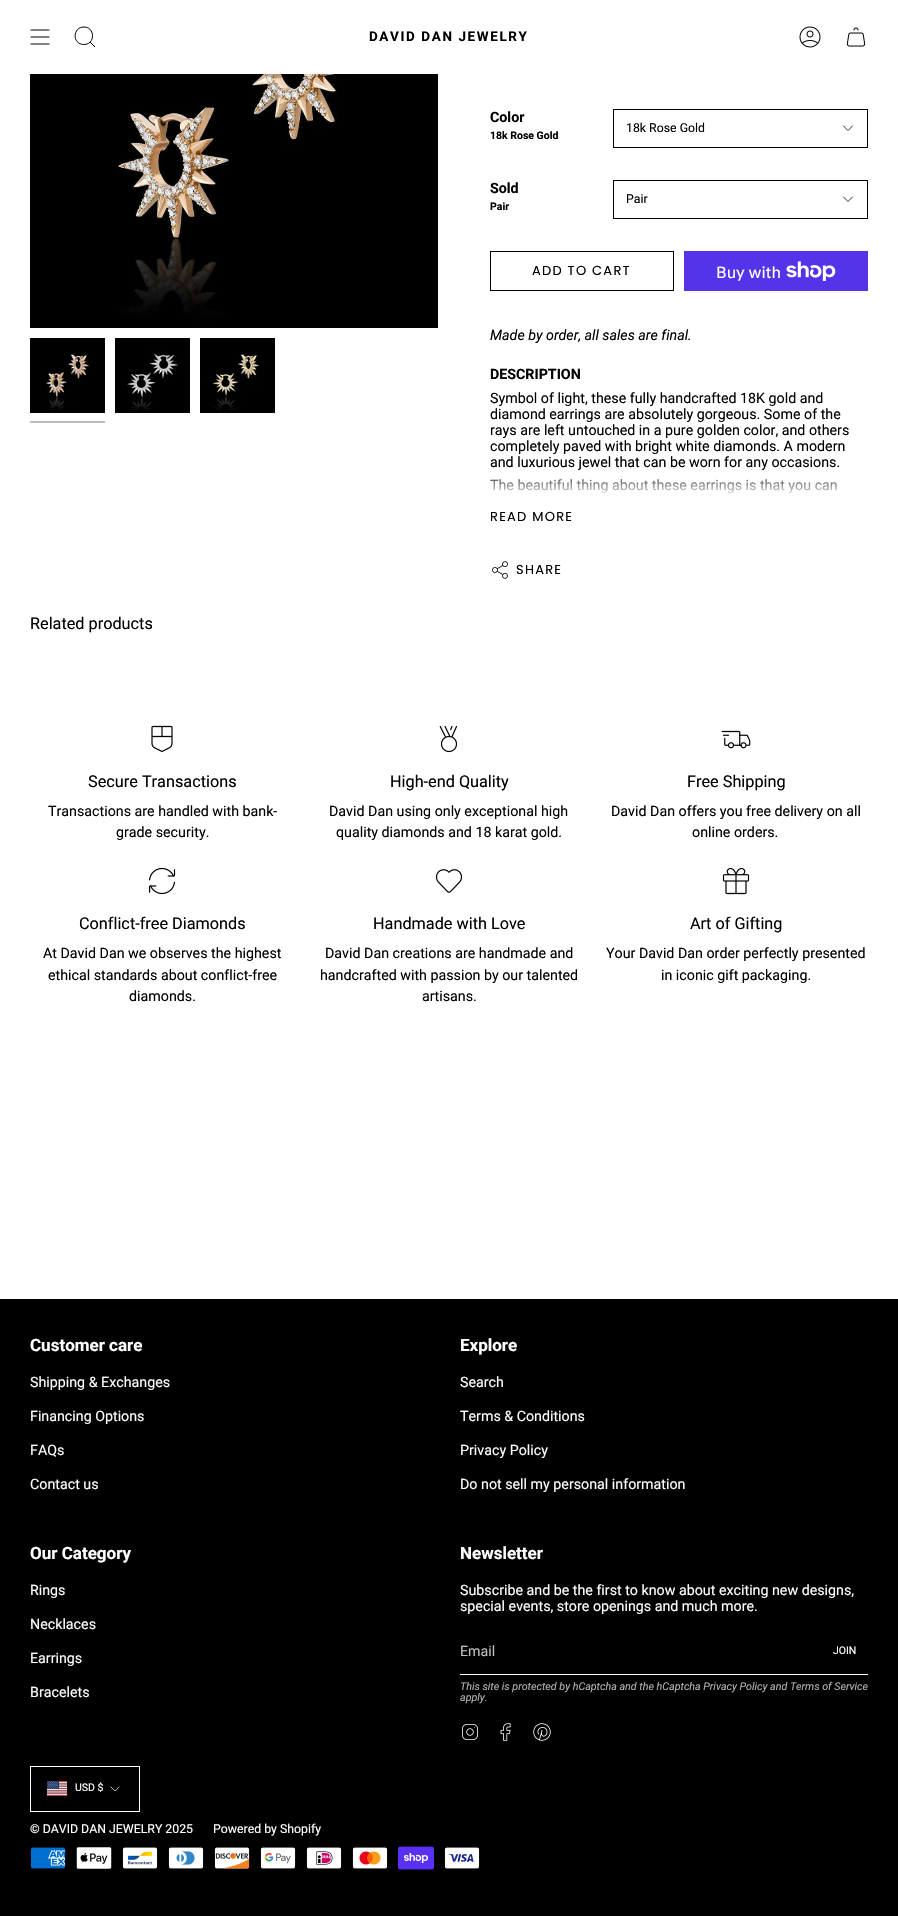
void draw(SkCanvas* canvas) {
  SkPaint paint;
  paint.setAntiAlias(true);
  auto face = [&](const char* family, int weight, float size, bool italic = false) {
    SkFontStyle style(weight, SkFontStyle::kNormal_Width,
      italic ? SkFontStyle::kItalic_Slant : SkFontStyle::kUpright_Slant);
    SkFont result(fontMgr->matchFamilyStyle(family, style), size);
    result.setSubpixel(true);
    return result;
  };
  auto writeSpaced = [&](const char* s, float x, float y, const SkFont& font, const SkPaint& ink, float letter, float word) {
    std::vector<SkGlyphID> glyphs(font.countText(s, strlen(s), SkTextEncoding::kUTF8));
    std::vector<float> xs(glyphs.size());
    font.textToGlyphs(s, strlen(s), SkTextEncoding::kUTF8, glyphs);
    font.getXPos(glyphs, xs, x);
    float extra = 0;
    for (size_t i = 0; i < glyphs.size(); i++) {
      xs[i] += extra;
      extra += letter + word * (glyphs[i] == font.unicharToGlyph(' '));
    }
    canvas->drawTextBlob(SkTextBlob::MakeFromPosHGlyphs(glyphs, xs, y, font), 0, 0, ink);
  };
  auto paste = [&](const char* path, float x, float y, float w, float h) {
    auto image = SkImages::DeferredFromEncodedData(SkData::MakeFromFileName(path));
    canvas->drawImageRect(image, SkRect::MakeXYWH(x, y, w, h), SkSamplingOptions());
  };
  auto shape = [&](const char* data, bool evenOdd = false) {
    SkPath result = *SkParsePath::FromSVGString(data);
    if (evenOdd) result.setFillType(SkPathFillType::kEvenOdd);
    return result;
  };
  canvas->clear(0xffffffff);
  paint.setStroke(true);
  paint.setStrokeWidth(1);
  paint.setStrokeCap(SkPaint::kRound_Cap);
  paint.setStrokeJoin(SkPaint::kRound_Join);
  paint.setColor(0xff000000);
  canvas->drawPath(shape("M31 30H49M31 37H49M31 44H49"), paint);
  paint.setStrokeCap(SkPaint::kButt_Cap);
  paint.setStrokeJoin(SkPaint::kMiter_Join);
  canvas->drawPath(shape("M84 27C95.5 27 95.5 45 83.5 44.5C72 44 72.5 27 84 27ZM90 42L95 47"), paint);
  paste("img/1.png", 799, 26, 22, 22);
  paste("img/2.png", 846, 27, 20, 20);
  paste("img/3.png", 30, 74, 408, 254);
  paste("img/4.png", 30, 338, 75, 75);
  paint.setStroke(false);
  paint.setColor(0xffbdbdbd);
  canvas->drawRect(SkRect::MakeXYWH(30, 421, 75, 2), paint);
  paste("img/5.png", 115, 338, 75, 75);
  paste("img/6.png", 200, 338, 75, 75);
  paint.setStroke(true);
  paint.setColor(0xff000000);
  canvas->drawRect(SkRect::MakeXYWH(613.5f, 109.5f, 254, 38), paint);
  paint.setStrokeWidth(0.8f);
  paint.setStrokeCap(SkPaint::kRound_Cap);
  paint.setStrokeJoin(SkPaint::kRound_Join);
  canvas->drawPath(shape("M843.5 126L848 130.5L852.5 126"), paint);
  paint.setStrokeWidth(1);
  paint.setStrokeCap(SkPaint::kButt_Cap);
  paint.setStrokeJoin(SkPaint::kMiter_Join);
  canvas->drawRect(SkRect::MakeXYWH(613.5f, 180.5f, 254, 38), paint);
  paint.setStrokeWidth(0.8f);
  paint.setStrokeCap(SkPaint::kRound_Cap);
  paint.setStrokeJoin(SkPaint::kRound_Join);
  canvas->drawPath(shape("M843.5 197L848 201.5L852.5 197"), paint);
  paint.setStrokeWidth(1);
  paint.setStrokeCap(SkPaint::kButt_Cap);
  paint.setStrokeJoin(SkPaint::kMiter_Join);
  canvas->drawRect(SkRect::MakeXYWH(490.5f, 251.5f, 183, 39), paint);
  paint.setStroke(false);
  paint.setColor(0xff5433eb);
  canvas->drawRect(SkRect::MakeXYWH(684, 251, 184, 40), paint);
  paste("img/7.png", 786, 261, 50, 20);
  paste("img/8.png", 492, 561, 16, 18);
  paste("img/9.png", 151, 725, 22, 27);
  paste("img/10.png", 439, 725, 19, 28);
  paste("img/11.png", 721, 730, 30, 19);
  paste("img/12.png", 148, 867, 28, 28);
  paste("img/13.png", 435, 869, 28, 24);
  paste("img/14.png", 722, 867, 28, 28);
  paint.setColor(0xff000000);
  canvas->drawRect(SkRect::MakeXYWH(0, 1299, 898, 617), paint);
  paint.setColor(0xffffffff);
  canvas->drawRect(SkRect::MakeXYWH(460, 1674, 408, 1), paint);
  paste("img/15.png", 462, 1724, 16, 16);
  paste("img/16.png", 500, 1723, 11, 18);
  paste("img/17.png", 533, 1723, 18, 18);
  paint.setStroke(true);
  canvas->drawRect(SkRect::MakeXYWH(30.5f, 1766.5f, 109, 45), paint);
  paste("img/18.png", 47, 1781, 20, 15);
  paint.setStrokeWidth(0.7f);
  paint.setStrokeCap(SkPaint::kRound_Cap);
  paint.setStrokeJoin(SkPaint::kRound_Join);
  canvas->drawPath(shape("M111 1787L115 1791L119 1787"), paint);
  paste("img/19.png", 30, 1847, 36, 22);
  paste("img/20.png", 76, 1847, 36, 22);
  paste("img/21.png", 122, 1847, 36, 22);
  paste("img/22.png", 168, 1847, 36, 22);
  paste("img/23.png", 214, 1847, 36, 22);
  paste("img/24.png", 260, 1847, 36, 22);
  paste("img/25.png", 306, 1847, 36, 22);
  paste("img/26.png", 352, 1847, 36, 22);
  paste("img/27.png", 398, 1846, 36, 24);
  paste("img/28.png", 444, 1847, 36, 22);
  auto f0 = face("Roboto", 700, 13.5f);
  paint.setStroke(false);
  paint.setColor(0xff000000);
  writeSpaced("DAVID DAN JEWELRY", 369, 41, f0, paint, 1.6f, 0);
  auto f1 = face("Roboto", 700, 14.25f);
  canvas->drawString("Color", 490, 122, f1, paint);
  auto f2 = face("Roboto", 700, 10.5f);
  canvas->drawString("18k Rose Gold", 490, 139, f2, paint);
  auto f3 = face("Roboto", 400, 12.3f);
  canvas->drawString("18k Rose Gold", 626, 132, f3, paint);
  canvas->drawString("Sold", 490, 193, f1, paint);
  canvas->drawString("Pair", 490, 210, f2, paint);
  canvas->drawString("Pair", 626, 203, f3, paint);
  auto f4 = face("Poppins", 400, 13);
  writeSpaced("ADD TO CART", 532, 275, f4, paint, 1.25f, 0);
  auto f5 = face("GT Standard", 400, 16);
  paint.setColor(0xffffffff);
  canvas->drawString("Buy with", 716, 278, f5, paint);
  auto f6 = face("Roboto", 400, 14.25f, true);
  paint.setColor(0xff000000);
  canvas->drawString("Made by order, all sales are final.", 490, 340, f6, paint);
  canvas->drawString("DESCRIPTION", 490, 379, f1, paint);
  auto f7 = face("Roboto", 400, 14.25f);
  {
    const struct { const char* s; float x, y; } items[] = {
      {"Symbol of light, these fully handcrafted 18K gold and", 490, 403},
      {"diamond earrings are absolutely gorgeous. Some of the", 490, 419},
      {"rays are left untouched in a pure golden color, and others", 490, 435},
      {"completely paved with bright white diamonds. A modern", 490, 451},
      {"and luxurious jewel that can be worn for any occasions.", 490, 467},
      {"The beautiful thing about these earrings is that you can", 490, 490},
    };
    for (auto [s, x, y] : items) {
      canvas->drawString(s, x, y, f7, paint);
    }
  }
  {
    const SkColor colors[] = {0x00ffffff, 0xffffffff};
    const float stops[] = {0, 1};
    const SkPoint ends[] = {{679, 468}, {679, 498}};
    paint.setShader(SkGradientShader::MakeLinear(ends, colors, stops, 2, SkTileMode::kClamp));
    paint.setAlpha(255);
  }
  canvas->drawRect(SkRect::MakeXYWH(490, 469, 347, 24), paint);
  paint.setShader(nullptr);
  paint.setColor(0xff000000);
  writeSpaced("READ MORE", 490, 521, f4, paint, 1.25f, 0);
  writeSpaced("SHARE", 516, 574, f4, paint, 1.25f, 0);
  auto f8 = face("Roboto", 400, 16.25f);
  canvas->drawString("Related products", 30, 629, f8, paint);
  canvas->drawString("Secure Transactions", 88, 787, f8, paint);
  canvas->drawString("Transactions are handled with bank-", 48, 816, f7, paint);
  canvas->drawString("grade security.", 116, 837, f7, paint);
  canvas->drawString("High-end Quality", 390, 787, f8, paint);
  canvas->drawString("David Dan using only exceptional high", 329, 816, f7, paint);
  canvas->drawString("quality diamonds and 18 karat gold.", 336, 837, f7, paint);
  canvas->drawString("Free Shipping", 687, 787, f8, paint);
  canvas->drawString("David Dan offers you free delivery on all", 611, 816, f7, paint);
  canvas->drawString("online orders.", 692, 837, f7, paint);
  canvas->drawString("Conflict-free Diamonds", 79, 929, f8, paint);
  {
    const struct { const char* s; float x, y; } items[] = {
      {"At David Dan we observes the highest", 43, 958},
      {"ethical standards about conflict-free", 48, 980},
      {"diamonds.", 129, 1001},
    };
    for (auto [s, x, y] : items) {
      canvas->drawString(s, x, y, f7, paint);
    }
  }
  canvas->drawString("Handmade with Love", 373, 929, f8, paint);
  {
    const struct { const char* s; float x, y; } items[] = {
      {"David Dan creations are handmade and", 325, 958},
      {"handcrafted with passion by our talented", 320, 980},
      {"artisans.", 422, 1001},
    };
    for (auto [s, x, y] : items) {
      canvas->drawString(s, x, y, f7, paint);
    }
  }
  canvas->drawString("Art of Gifting", 690, 929, f8, paint);
  canvas->drawString("Your David Dan order perfectly presented", 606, 958, f7, paint);
  canvas->drawString("in iconic gift packaging.", 661, 980, f7, paint);
  auto f9 = face("Roboto", 700, 17);
  paint.setColor(0xffffffff);
  canvas->drawString("Customer care", 30, 1351, f9, paint);
  {
    const struct { const char* s; float x, y; } items[] = {
      {"Shipping & Exchanges", 30, 1387},
      {"Financing Options", 30, 1421},
      {"FAQs", 30, 1455},
      {"Contact us", 30, 1489},
    };
    for (auto [s, x, y] : items) {
      canvas->drawString(s, x, y, f7, paint);
    }
  }
  canvas->drawString("Explore", 460, 1351, f9, paint);
  {
    const struct { const char* s; float x, y; } items[] = {
      {"Search", 460, 1387},
      {"Terms & Conditions", 460, 1421},
      {"Privacy Policy", 460, 1455},
      {"Do not sell my personal information", 460, 1489},
    };
    for (auto [s, x, y] : items) {
      canvas->drawString(s, x, y, f7, paint);
    }
  }
  canvas->drawString("Our Category", 30, 1559, f9, paint);
  {
    const struct { const char* s; float x, y; } items[] = {
      {"Rings", 30, 1595},
      {"Necklaces", 30, 1629},
      {"Earrings", 30, 1663},
      {"Bracelets", 30, 1697},
    };
    for (auto [s, x, y] : items) {
      canvas->drawString(s, x, y, f7, paint);
    }
  }
  canvas->drawString("Newsletter", 460, 1559, f9, paint);
  canvas->drawString("Subscribe and be the first to know about exciting new designs,", 460, 1595, f7, paint);
  canvas->drawString("special events, store openings and much more.", 460, 1611, f7, paint);
  paint.setColor(0xffbfbfbf);
  canvas->drawString("Email", 460, 1656, f7, paint);
  auto f10 = face("Roboto", 400, 10.5f);
  paint.setColor(0xffffffff);
  canvas->drawString("JOIN", 833, 1654, f10, paint);
  auto f11 = face("Roboto", 400, 10.7f, true);
  paint.setColor(0xffb3b3b3);
  canvas->drawString("This site is protected by hCaptcha and the hCaptcha Privacy Policy and Terms of Service", 460, 1690, f11, paint);
  canvas->drawString("apply.", 460, 1701, f11, paint);
  paint.setColor(0xffffffff);
  canvas->drawString("USD $", 75, 1791, f10, paint);
  canvas->drawString("© DAVID DAN JEWELRY 2025", 30, 1833, f3, paint);
  canvas->drawString("Powered by Shopify", 213, 1833, f3, paint);
}
